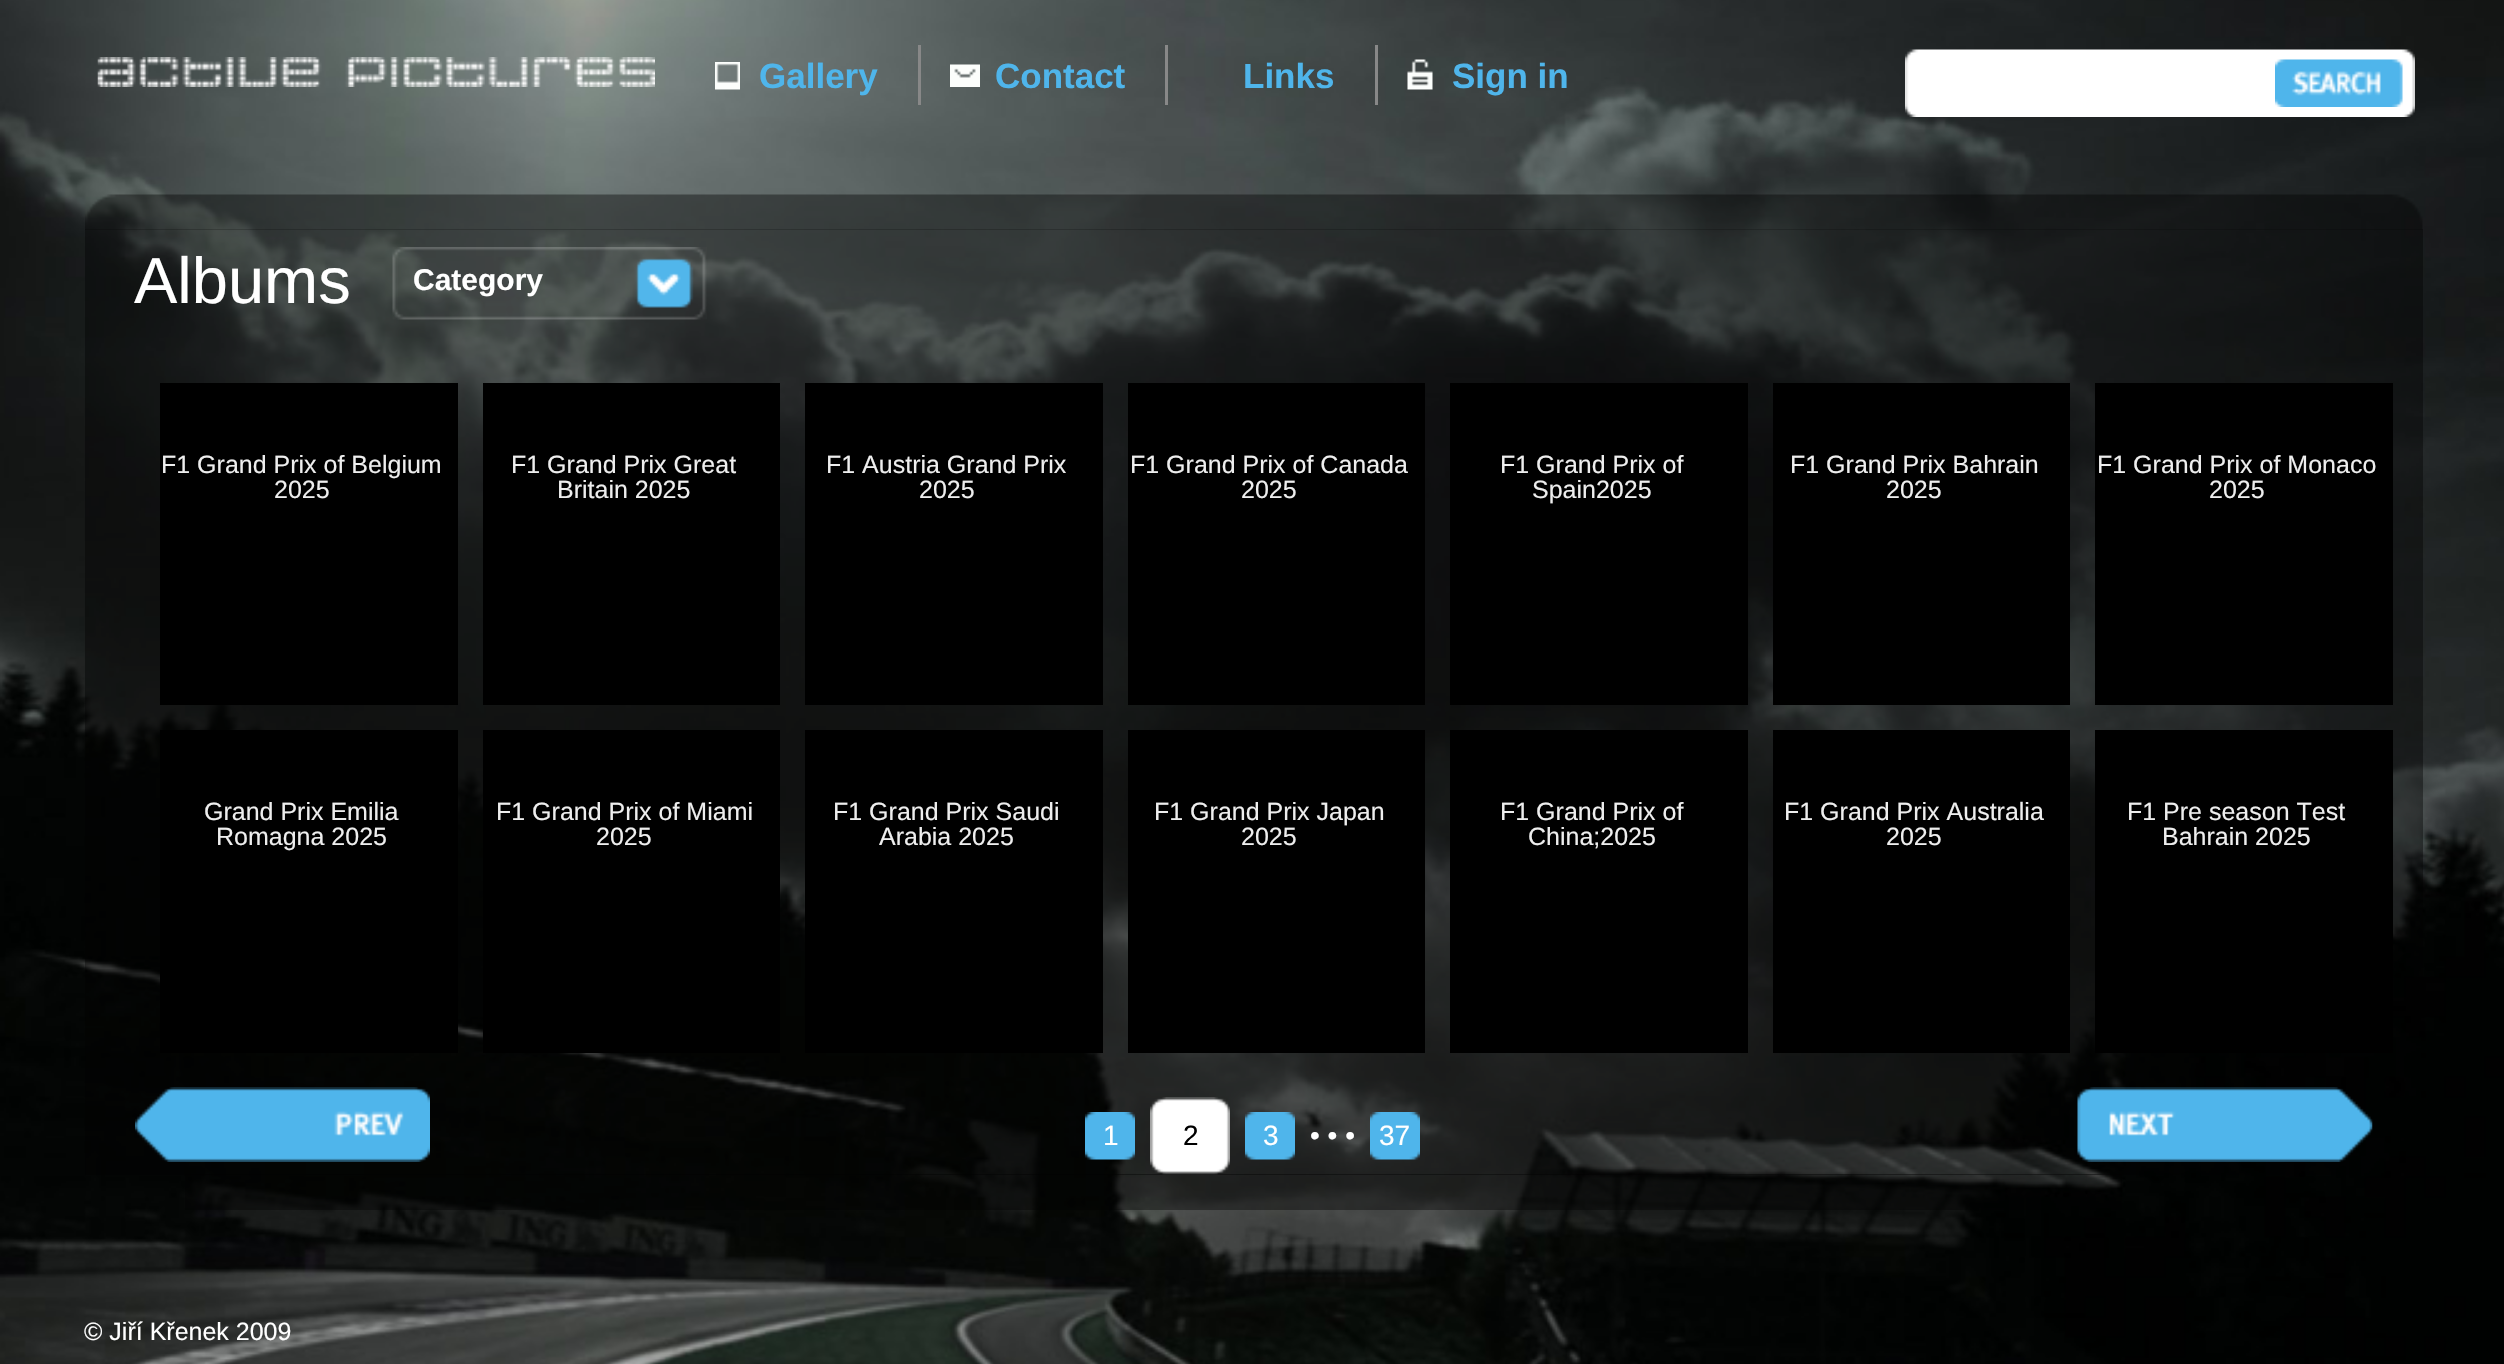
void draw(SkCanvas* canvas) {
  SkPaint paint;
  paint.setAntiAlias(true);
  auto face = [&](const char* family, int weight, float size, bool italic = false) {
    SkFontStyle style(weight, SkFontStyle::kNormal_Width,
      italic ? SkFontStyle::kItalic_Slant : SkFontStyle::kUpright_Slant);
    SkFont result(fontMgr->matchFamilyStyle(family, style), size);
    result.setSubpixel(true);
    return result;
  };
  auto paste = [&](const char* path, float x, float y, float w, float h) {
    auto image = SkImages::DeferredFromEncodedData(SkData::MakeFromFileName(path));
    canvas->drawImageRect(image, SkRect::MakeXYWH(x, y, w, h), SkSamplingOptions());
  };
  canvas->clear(0xffffffff);
  paste("img/1.png", 0, 0, 2504, 1364);
  paint.setColor(0xff888888);
  canvas->drawRect(SkRect::MakeXYWH(918, 45, 3, 60), paint);
  paste("img/2.png", 715, 62, 25, 28);
  canvas->drawRect(SkRect::MakeXYWH(1165, 45, 3, 60), paint);
  paste("img/3.png", 950, 64, 30, 23);
  canvas->drawRect(SkRect::MakeXYWH(1375, 45, 3, 60), paint);
  paste("img/4.png", 1407, 59, 26, 31);
  paste("img/5.png", 97, 57, 558, 30);
  paste("img/6.png", 1905, 49, 510, 68);
  paste("img/7.png", 2275, 59, 128, 48);
  paste("img/8.png", 85, 194, 2338, 36);
  paint.setColor(0x66000000);
  canvas->drawRect(SkRect::MakeXYWH(185, 1174, 1937, 36), paint);
  canvas->drawRect(SkRect::MakeXYWH(85, 229, 2338, 946), paint);
  paste("img/9.png", 392, 247, 315, 73);
  {
    const struct { float x, y, w, h; SkColor color; } items[] = {
      {160, 383, 298, 322, 0xff000000},
      {483, 383, 297, 322, 0xff000000},
      {805, 383, 298, 322, 0xff000000},
      {1128, 383, 297, 322, 0xff000000},
      {1450, 383, 298, 322, 0xff000000},
      {1773, 383, 297, 322, 0xff000000},
      {2095, 383, 298, 322, 0xff000000},
      {160, 730, 298, 323, 0xff000000},
      {483, 730, 297, 323, 0xff000000},
      {805, 730, 298, 323, 0xff000000},
      {1128, 730, 297, 323, 0xff000000},
      {1450, 730, 298, 323, 0xff000000},
      {1773, 730, 297, 323, 0xff000000},
      {2095, 730, 298, 323, 0xff000000},
    };
    for (auto [x, y, w, h, color] : items) {
      paint.setColor(color);
      canvas->drawRect(SkRect::MakeXYWH(x, y, w, h), paint);
    }
  }
  paste("img/10.png", 135, 1087, 295, 75);
  paste("img/11.png", 1085, 1112, 50, 48);
  paste("img/12.png", 1150, 1097, 80, 78);
  paste("img/13.png", 1245, 1112, 50, 48);
  paste("img/14.png", 1370, 1112, 50, 48);
  paste("img/15.png", 2077, 1087, 296, 75);
  auto f0 = face("Liberation Sans", 700, 35);
  paint.setColor(0xff4fb5eb);
  {
    const struct { const char* s; float x, y; } items[] = {
      {"Gallery", 759, 88},
      {"Contact", 995, 88},
      {"Links", 1243, 88},
      {"Sign in", 1452, 88},
    };
    for (auto [s, x, y] : items) {
      canvas->drawString(s, x, y, f0, paint);
    }
  }
  auto f1 = face("Liberation Sans", 400, 65);
  paint.setColor(0xffffffff);
  canvas->drawString("Albums", 134, 303, f1, paint);
  auto f2 = face("Liberation Sans", 700, 30);
  canvas->drawString("Category", 413, 290, f2, paint);
  auto f3 = face("Liberation Sans", 400, 25);
  paint.setColor(0xffeeeeee);
  {
    const struct { const char* s; float x, y; } items[] = {
      {"F1 Grand Prix of Belgium", 161, 473},
      {"2025", 274, 498},
      {"F1 Grand Prix Great", 511, 473},
      {"Britain 2025", 557, 498},
      {"F1 Austria Grand Prix", 826, 473},
      {"2025", 919, 498},
      {"F1 Grand Prix of Canada", 1130, 473},
      {"2025", 1241, 498},
      {"F1 Grand Prix of", 1500, 473},
      {"Spain2025", 1532, 498},
      {"F1 Grand Prix Bahrain", 1790, 473},
      {"2025", 1886, 498},
      {"F1 Grand Prix of Monaco", 2097, 473},
      {"2025", 2209, 498},
      {"Grand Prix Emilia", 204, 820},
      {"Romagna 2025", 216, 845},
      {"F1 Grand Prix of Miami", 496, 820},
      {"2025", 596, 845},
      {"F1 Grand Prix Saudi", 833, 820},
      {"Arabia 2025", 879, 845},
      {"F1 Grand Prix Japan", 1154, 820},
      {"2025", 1241, 845},
      {"F1 Grand Prix of", 1500, 820},
      {"China;2025", 1528, 845},
      {"F1 Grand Prix Australia", 1784, 820},
      {"2025", 1886, 845},
      {"F1 Pre season Test", 2127, 820},
      {"Bahrain 2025", 2162, 845},
    };
    for (auto [s, x, y] : items) {
      canvas->drawString(s, x, y, f3, paint);
    }
  }
  auto f4 = face("Liberation Sans", 400, 28);
  paint.setColor(0xffffffff);
  canvas->drawString("1", 1103, 1145, f4, paint);
  paint.setColor(0xff000000);
  canvas->drawString("2", 1183, 1145, f4, paint);
  paint.setColor(0xffffffff);
  {
    const struct { const char* s; float x, y; } items[] = {
      {"3", 1263, 1145},
      {"• • •", 1310, 1145},
      {"37", 1379, 1145},
    };
    for (auto [s, x, y] : items) {
      canvas->drawString(s, x, y, f4, paint);
    }
  }
  canvas->drawString("© Jiří Křenek 2009", 84, 1340, f3, paint);
}
